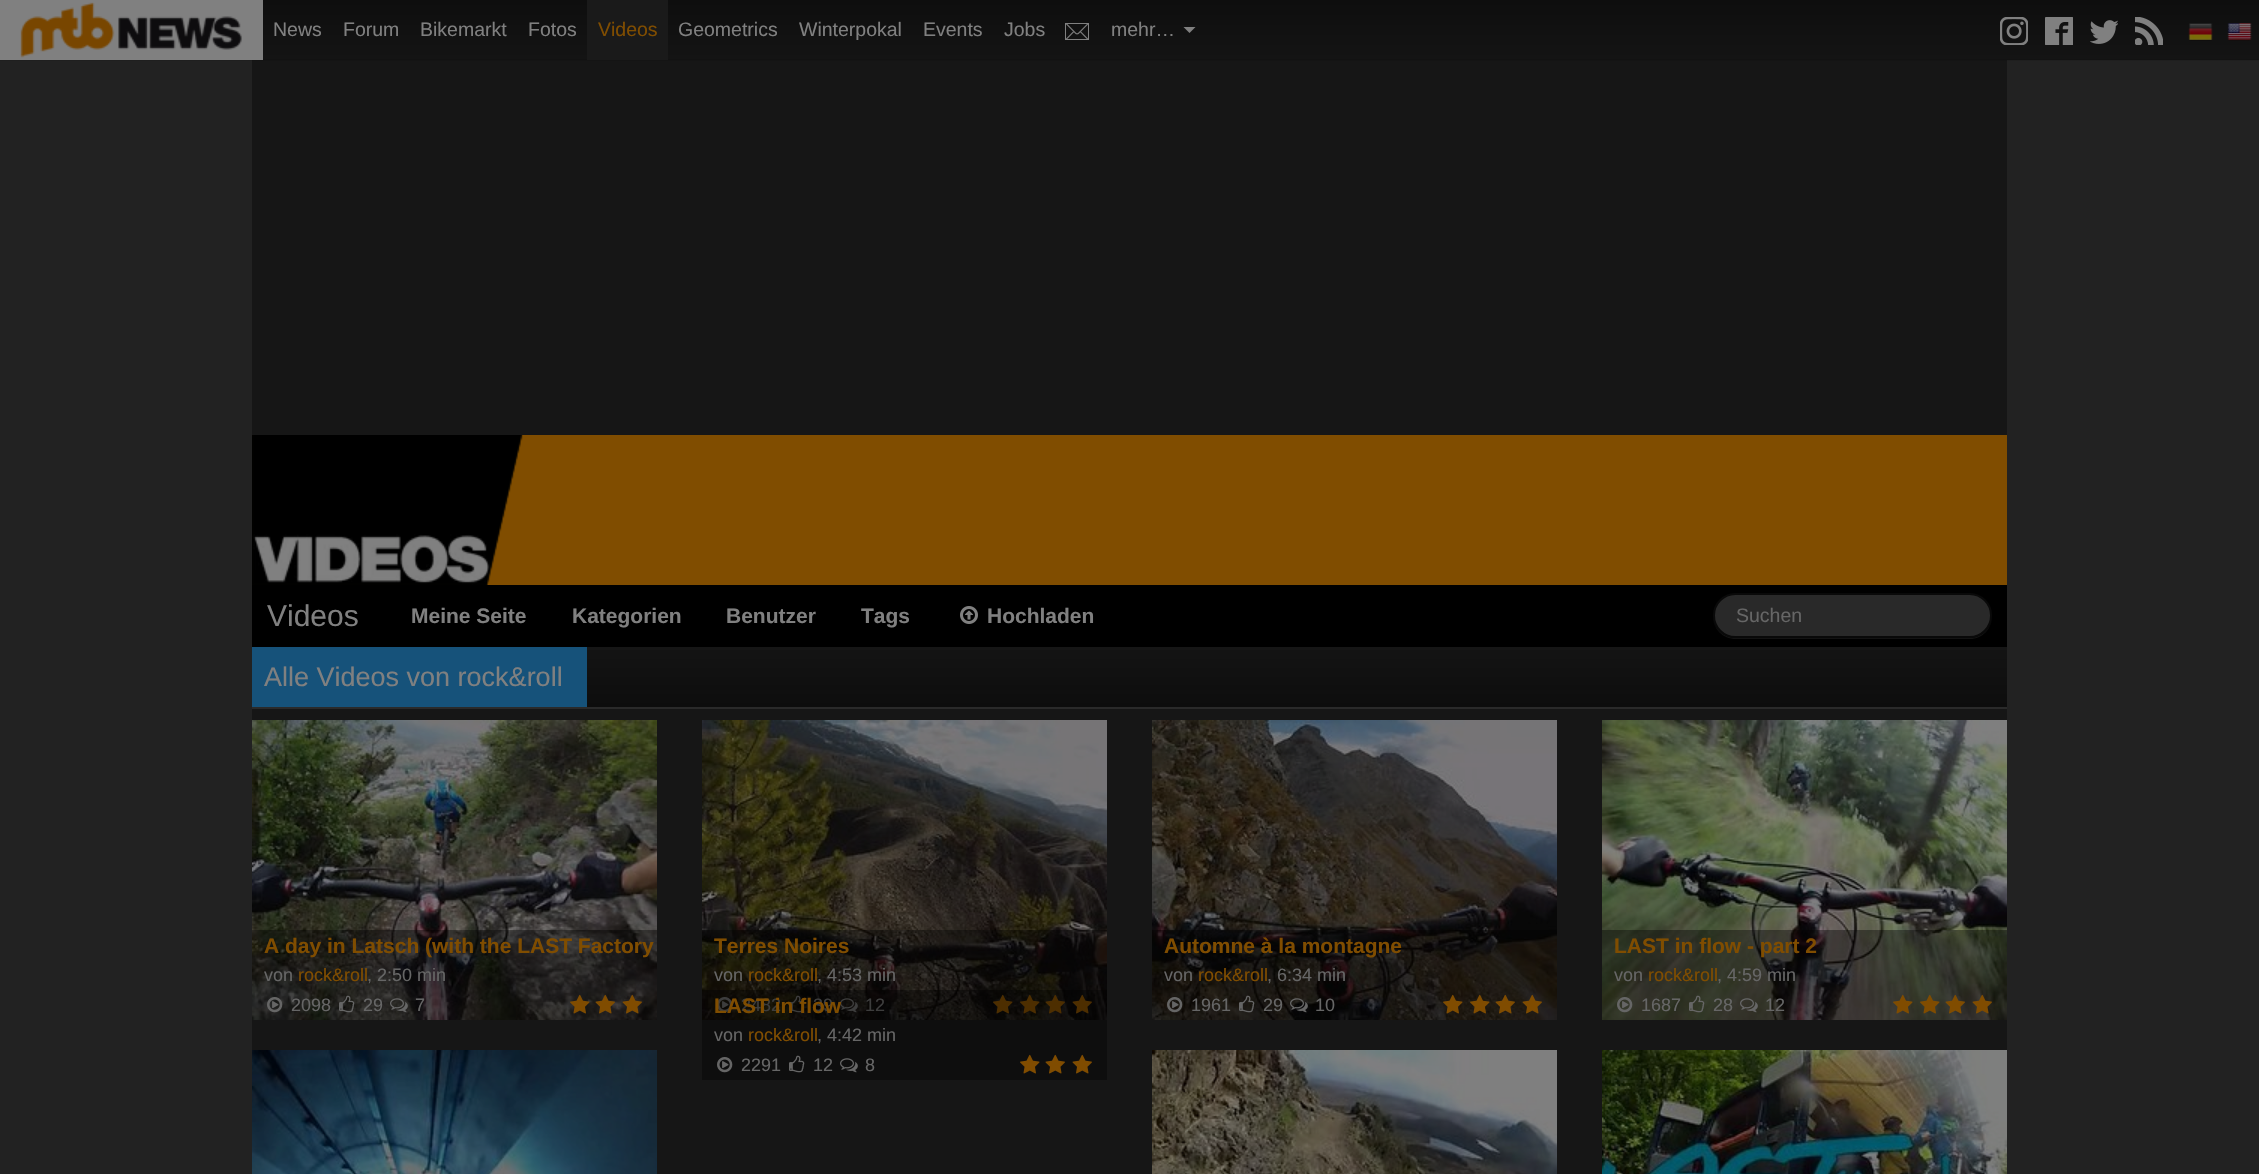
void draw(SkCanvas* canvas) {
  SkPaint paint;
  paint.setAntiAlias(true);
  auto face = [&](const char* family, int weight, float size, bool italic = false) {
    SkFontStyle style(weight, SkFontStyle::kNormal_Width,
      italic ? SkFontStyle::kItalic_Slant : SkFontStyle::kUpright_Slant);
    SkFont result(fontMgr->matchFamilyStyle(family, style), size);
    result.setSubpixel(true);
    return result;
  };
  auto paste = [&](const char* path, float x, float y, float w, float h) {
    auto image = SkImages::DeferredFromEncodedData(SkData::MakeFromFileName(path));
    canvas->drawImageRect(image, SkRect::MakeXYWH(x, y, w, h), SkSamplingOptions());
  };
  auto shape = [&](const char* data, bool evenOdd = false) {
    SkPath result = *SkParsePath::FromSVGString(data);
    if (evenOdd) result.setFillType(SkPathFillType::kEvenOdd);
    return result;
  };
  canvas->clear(0xff222222);
  {
    const SkColor colors[] = {0xff0e0e0e, 0xff141414};
    const float stops[] = {0, 1};
    const SkPoint ends[] = {{1130, 0}, {1130, 60}};
    paint.setShader(SkGradientShader::MakeLinear(ends, colors, stops, 2, SkTileMode::kClamp));
    paint.setAlpha(255);
  }
  canvas->drawRect(SkRect::MakeXYWH(263, 0, 1996, 60), paint);
  paint.setShader(nullptr);
  {
    const struct { float x, y, w, h; SkColor color; } items[] = {
      {252, 60, 1755, 1114, 0xff161616},
      {0, 59, 2259, 2, 0x1a000000},
      {0, 0, 263, 60, 0xff808080},
    };
    for (auto [x, y, w, h, color] : items) {
      paint.setColor(color);
      canvas->drawRect(SkRect::MakeXYWH(x, y, w, h), paint);
    }
  }
  paste("img/1.png", 20, 2, 222, 56);
  paint.setColor(0xff1a1a1a);
  canvas->drawRect(SkRect::MakeXYWH(587, 0, 81, 60), paint);
  paste("img/2.png", 1065, 23, 24, 17);
  paint.setColor(0xff808080);
  canvas->drawPath(shape("M1183.5 27H1195.5L1189.5 33Z"), paint);
  paste("img/3.png", 2000, 17, 28, 28);
  paste("img/4.png", 2045, 17, 28, 28);
  paste("img/5.png", 2090, 20, 28, 24);
  paste("img/6.png", 2135, 17, 28, 28);
  paste("img/7.png", 2188, 23, 25, 18);
  paste("img/8.png", 2227, 23, 25, 18);
  paint.setColor(0xff804d00);
  canvas->drawRect(SkRect::MakeXYWH(252, 435, 1755, 150), paint);
  paste("img/9.png", 252, 435, 271, 150);
  paint.setColor(0xff000000);
  canvas->drawRect(SkRect::MakeXYWH(252, 585, 1755, 62), paint);
  paste("img/10.png", 960, 606, 18, 18);
  paint.setColor(0xff131313);
  canvas->drawPath(shape("M1713 616C1713 629 1723 639 1736 639H1970C1982 639 1992 629 1992 616C1992 628 1982 638 1970 638H1736C1723 638 1713 628 1713 616Z"), paint);
  paint.setColor(0xff292929);
  canvas->drawRoundRect(SkRect::MakeXYWH(1714, 594, 277, 43), 21.5f, 21.5f, paint);
  paint.setStroke(true);
  paint.setStrokeWidth(2);
  paint.setColor(0xff090909);
  canvas->drawRoundRect(SkRect::MakeXYWH(1714, 594, 277, 43), 21.5f, 21.5f, paint);
  paint.setStroke(false);
  {
    const SkColor colors[] = {0xff141414, 0xff0d0d0d};
    const float stops[] = {0, 1};
    const SkPoint ends[] = {{1130, 646}, {1130, 707}};
    paint.setShader(SkGradientShader::MakeLinear(ends, colors, stops, 2, SkTileMode::kClamp));
    paint.setAlpha(255);
  }
  canvas->drawRect(SkRect::MakeXYWH(587, 650, 1420, 57), paint);
  paint.setShader(nullptr);
  paint.setColor(0xff2a2a2a);
  canvas->drawRect(SkRect::MakeXYWH(252, 707, 1755, 2), paint);
  paint.setColor(0xff16527a);
  canvas->drawRect(SkRect::MakeXYWH(252, 647, 335, 60), paint);
  paste("img/11.png", 252, 720, 405, 300);
  paint.setColor(0x66000000);
  canvas->drawRect(SkRect::MakeXYWH(252, 930, 405, 90), paint);
  paste("img/12.png", 267, 997, 16, 16);
  paste("img/13.png", 339, 995, 16, 18);
  paste("img/14.png", 390, 998, 18, 15);
  paste("img/15.png", 570, 994, 20, 20);
  paste("img/16.png", 595, 994, 20, 20);
  paste("img/17.png", 622, 994, 20, 20);
  paste("img/18.png", 702, 720, 405, 300);
  canvas->drawRect(SkRect::MakeXYWH(702, 930, 405, 90), paint);
  paste("img/19.png", 717, 997, 16, 16);
  paste("img/20.png", 789, 995, 16, 18);
  paste("img/21.png", 840, 998, 18, 15);
  paste("img/22.png", 993, 994, 20, 20);
  paste("img/23.png", 1020, 994, 20, 20);
  paste("img/24.png", 1045, 994, 20, 20);
  paste("img/25.png", 1072, 994, 20, 20);
  paste("img/26.png", 1152, 720, 405, 300);
  canvas->drawRect(SkRect::MakeXYWH(1152, 930, 405, 90), paint);
  paste("img/27.png", 1167, 997, 16, 16);
  paste("img/28.png", 1239, 995, 16, 18);
  paste("img/29.png", 1290, 998, 18, 15);
  paste("img/30.png", 1443, 994, 20, 20);
  paste("img/31.png", 1470, 994, 20, 20);
  paste("img/32.png", 1495, 994, 20, 20);
  paste("img/33.png", 1522, 994, 20, 20);
  paste("img/34.png", 1602, 720, 405, 300);
  canvas->drawRect(SkRect::MakeXYWH(1602, 930, 405, 90), paint);
  paste("img/35.png", 1617, 997, 16, 16);
  paste("img/36.png", 1689, 995, 16, 18);
  paste("img/37.png", 1740, 998, 18, 15);
  paste("img/38.png", 1893, 994, 20, 20);
  paste("img/39.png", 1920, 994, 20, 20);
  paste("img/40.png", 1945, 994, 20, 20);
  paste("img/41.png", 1972, 994, 20, 20);
  paste("img/47.png", 252, 1050, 405, 124);
  paste("img/48.png", 1152, 1050, 405, 124);
  paste("img/49.png", 1602, 1050, 405, 124);
  auto f0 = face("Liberation Sans", 400, 19.5f);
  paint.setColor(0xff808080);
  {
    const struct { const char* s; float x, y; } items[] = {
      {"News", 273, 36},
      {"Forum", 343, 36},
      {"Bikemarkt", 420, 36},
      {"Fotos", 528, 36},
    };
    for (auto [s, x, y] : items) {
      canvas->drawString(s, x, y, f0, paint);
    }
  }
  paint.setColor(0xff804d00);
  canvas->drawString("Videos", 598, 36, f0, paint);
  paint.setColor(0xff808080);
  {
    const struct { const char* s; float x, y; } items[] = {
      {"Geometrics", 678, 36},
      {"Winterpokal", 799, 36},
      {"Events", 923, 36},
      {"Jobs", 1004, 36},
      {"mehr…", 1111, 36},
    };
    for (auto [s, x, y] : items) {
      canvas->drawString(s, x, y, f0, paint);
    }
  }
  auto f1 = face("Liberation Sans", 400, 30);
  canvas->drawString("Videos", 267, 626, f1, paint);
  auto f2 = face("Liberation Sans", 700, 21);
  {
    const struct { const char* s; float x, y; } items[] = {
      {"Meine Seite", 411, 623},
      {"Kategorien", 572, 623},
      {"Benutzer", 726, 623},
      {"Tags", 861, 623},
      {"Hochladen", 987, 623},
    };
    for (auto [s, x, y] : items) {
      canvas->drawString(s, x, y, f2, paint);
    }
  }
  paint.setColor(0xff666666);
  canvas->drawString("Suchen", 1736, 622, f0, paint);
  auto f3 = face("Liberation Sans", 400, 27);
  paint.setColor(0xff808080);
  canvas->drawString("Alle Videos von rock&roll", 264, 686, f3, paint);
  paint.setColor(0xff804d00);
  canvas->drawString("A day in Latsch (with the LAST Factory", 264, 953, f2, paint);
  auto f4 = face("Liberation Sans", 400, 18);
  paint.setColor(0xff666666);
  canvas->drawString("von", 264, 981, f4, paint);
  paint.setColor(0xff804d00);
  canvas->drawString("rock&roll", 298, 981, f4, paint);
  paint.setColor(0xff666666);
  {
    const struct { const char* s; float x, y; } items[] = {
      {", 2:50 min", 367, 981},
      {"2098", 291, 1011},
      {"29", 363, 1011},
      {"7", 415, 1011},
    };
    for (auto [s, x, y] : items) {
      canvas->drawString(s, x, y, f4, paint);
    }
  }
  paint.setColor(0xff804d00);
  canvas->drawString("Terres Noires", 714, 953, f2, paint);
  paint.setColor(0xff666666);
  canvas->drawString("von", 714, 981, f4, paint);
  paint.setColor(0xff804d00);
  canvas->drawString("rock&roll", 748, 981, f4, paint);
  paint.setColor(0xff666666);
  {
    const struct { const char* s; float x, y; } items[] = {
      {", 4:53 min", 817, 981},
      {"2482", 741, 1011},
      {"39", 813, 1011},
      {"12", 865, 1011},
    };
    for (auto [s, x, y] : items) {
      canvas->drawString(s, x, y, f4, paint);
    }
  }
  paint.setColor(0xff804d00);
  canvas->drawString("Automne à la montagne", 1164, 953, f2, paint);
  paint.setColor(0xff666666);
  canvas->drawString("von", 1164, 981, f4, paint);
  paint.setColor(0xff804d00);
  canvas->drawString("rock&roll", 1198, 981, f4, paint);
  paint.setColor(0xff666666);
  {
    const struct { const char* s; float x, y; } items[] = {
      {", 6:34 min", 1267, 981},
      {"1961", 1191, 1011},
      {"29", 1263, 1011},
      {"10", 1315, 1011},
    };
    for (auto [s, x, y] : items) {
      canvas->drawString(s, x, y, f4, paint);
    }
  }
  paint.setColor(0xff804d00);
  canvas->drawString("LAST in flow - part 2", 1614, 953, f2, paint);
  paint.setColor(0xff666666);
  canvas->drawString("von", 1614, 981, f4, paint);
  paint.setColor(0xff804d00);
  canvas->drawString("rock&roll", 1648, 981, f4, paint);
  paint.setColor(0xff666666);
  {
    const struct { const char* s; float x, y; } items[] = {
      {", 4:59 min", 1717, 981},
      {"1687", 1641, 1011},
      {"28", 1713, 1011},
      {"12", 1765, 1011},
    };
    for (auto [s, x, y] : items) {
      canvas->drawString(s, x, y, f4, paint);
    }
  }
  paint.setColor(0x66000000);
  canvas->drawRect(SkRect::MakeXYWH(702, 990, 405, 90), paint);
  paint.setColor(0xff804d00);
  canvas->drawString("LAST in flow", 714, 1013, f2, paint);
  paint.setColor(0xff666666);
  canvas->drawString("von", 714, 1041, f4, paint);
  paint.setColor(0xff804d00);
  canvas->drawString("rock&roll", 748, 1041, f4, paint);
  paint.setColor(0xff666666);
  canvas->drawString(", 4:42 min", 817, 1041, f4, paint);
  paste("img/42.png", 717, 1057, 16, 16);
  canvas->drawString("2291", 741, 1071, f4, paint);
  paste("img/43.png", 789, 1055, 16, 18);
  canvas->drawString("12", 813, 1071, f4, paint);
  paste("img/44.png", 840, 1058, 18, 15);
  canvas->drawString("8", 865, 1071, f4, paint);
  paste("img/45.png", 1020, 1054, 20, 20);
  paste("img/46.png", 1045, 1054, 20, 20);
  paste("img/46.png", 1072, 1054, 20, 20);
}
